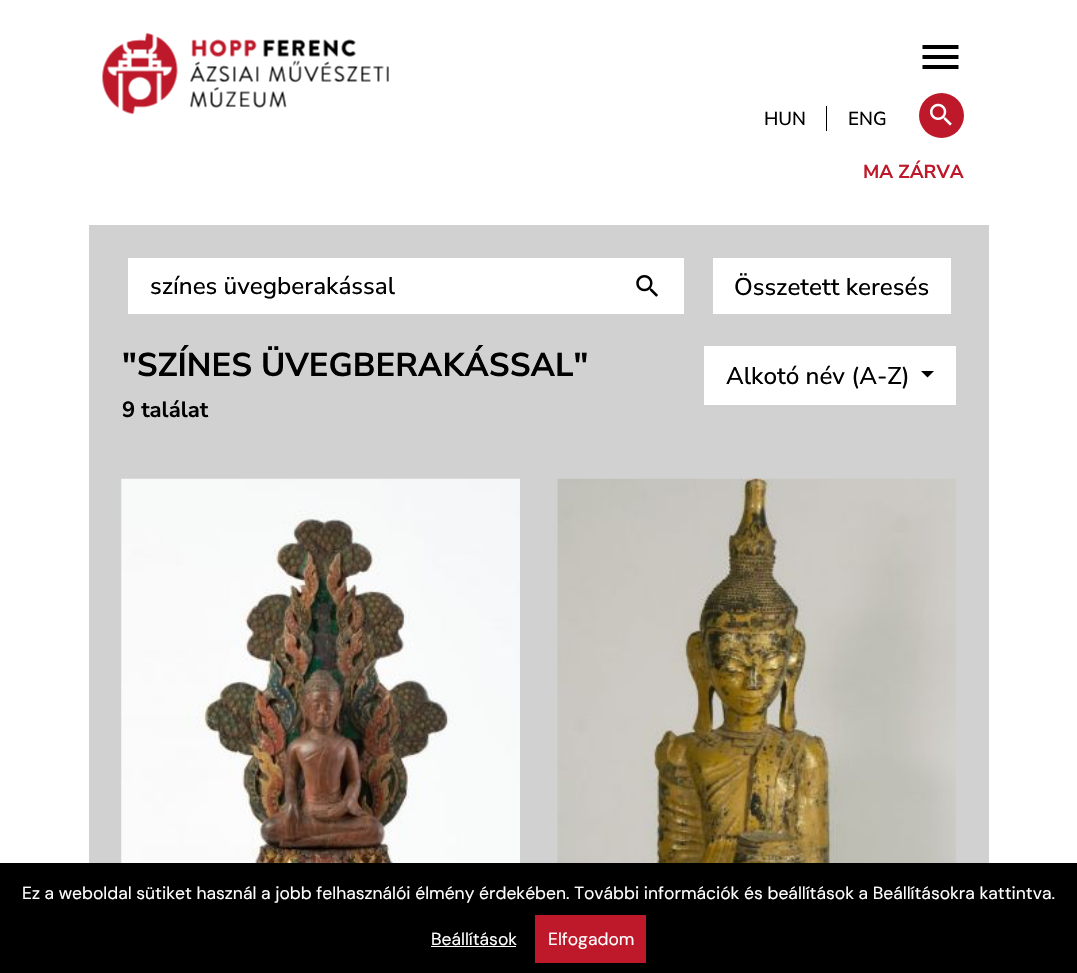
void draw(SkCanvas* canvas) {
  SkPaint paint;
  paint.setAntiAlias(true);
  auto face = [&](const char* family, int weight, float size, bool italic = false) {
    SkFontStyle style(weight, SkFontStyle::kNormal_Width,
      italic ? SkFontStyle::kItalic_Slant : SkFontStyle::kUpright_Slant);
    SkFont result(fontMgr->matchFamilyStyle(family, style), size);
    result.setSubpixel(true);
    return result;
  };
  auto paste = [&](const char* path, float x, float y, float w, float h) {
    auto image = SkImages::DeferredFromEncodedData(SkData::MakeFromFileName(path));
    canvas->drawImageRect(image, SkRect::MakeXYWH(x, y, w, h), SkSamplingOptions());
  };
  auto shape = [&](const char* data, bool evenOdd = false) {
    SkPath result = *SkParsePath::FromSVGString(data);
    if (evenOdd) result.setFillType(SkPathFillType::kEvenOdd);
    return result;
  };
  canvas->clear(0xffffffff);
  paint.setColor(0xff000000);
  canvas->drawPath(shape("M922.5 45H958.5V49H922.5ZM922.5 59V55H958.5V59ZM922.5 69V65H958.5V69Z"), paint);
  canvas->drawRect(SkRect::MakeXYWH(826, 106, 1, 25), paint);
  paint.setColor(0xffbe192a);
  canvas->drawCircle(941.5f, 115.5f, 22.5f, paint);
  paste("img/1.png", 930, 103, 22, 23);
  paste("img/2.png", 102, 32, 287, 82);
  paint.setColor(0xffd1d1d1);
  canvas->drawRect(SkRect::MakeXYWH(89, 225, 900, 638), paint);
  paint.setColor(0xffffffff);
  canvas->drawRect(SkRect::MakeXYWH(128, 258, 556, 56), paint);
  paste("img/3.png", 636, 275, 22, 22);
  canvas->drawRect(SkRect::MakeXYWH(713, 258, 238, 56), paint);
  canvas->drawRect(SkRect::MakeXYWH(704, 346, 252, 59), paint);
  paint.setColor(0xff000000);
  canvas->drawPath(shape("M921 371H934L927.5 377.5Z"), paint);
  paste("img/4.png", 121, 478, 399, 385);
  paste("img/5.png", 557, 478, 399, 385);
  {
    const struct { float x, y, w, h; SkColor color; } items[] = {
      {0, 863, 1077, 110, 0xff000000},
      {431, 946, 85, 1, 0xffffffff},
      {535, 915, 111, 48, 0xffbe192a},
    };
    for (auto [x, y, w, h, color] : items) {
      paint.setColor(color);
      canvas->drawRect(SkRect::MakeXYWH(x, y, w, h), paint);
    }
  }
  auto f0 = face("Nunito Sans", 500, 18.75f);
  paint.setColor(0xff000000);
  canvas->drawString("HUN", 764, 125, f0, paint);
  canvas->drawString("ENG", 848, 125, f0, paint);
  auto f1 = face("Nunito Sans", 700, 18.75f);
  paint.setColor(0xffbe192a);
  canvas->drawString("MA ZÁRVA", 863, 178, f1, paint);
  auto f2 = face("Nunito Sans", 500, 24.25f);
  paint.setColor(0xff000000);
  canvas->drawString("színes üvegberakással", 150, 294, f2, paint);
  canvas->drawString("Összetett keresés", 734, 295, f2, paint);
  auto f3 = face("Nunito Sans", 700, 33);
  canvas->drawString("\"SZÍNES ÜVEGBERAKÁSSAL\"", 122, 376, f3, paint);
  auto f4 = face("Nunito Sans", 700, 22);
  canvas->drawString("9 találat", 122, 417, f4, paint);
  canvas->drawString("Alkotó név (A-Z)", 726, 384, f2, paint);
  auto f5 = face("DM Sans", 400, 17.5f);
  paint.setColor(0xffffffff);
  {
    const struct { const char* s; float x, y; } items[] = {
      {"Ez a weboldal sütiket használ a jobb felhasználói élmény érdekében. További információk és beállítások a Beállításokra kattintva.", 22, 899},
      {"Beállítások", 431, 945},
      {"Elfogadom", 548, 945},
    };
    for (auto [s, x, y] : items) {
      canvas->drawString(s, x, y, f5, paint);
    }
  }
}
